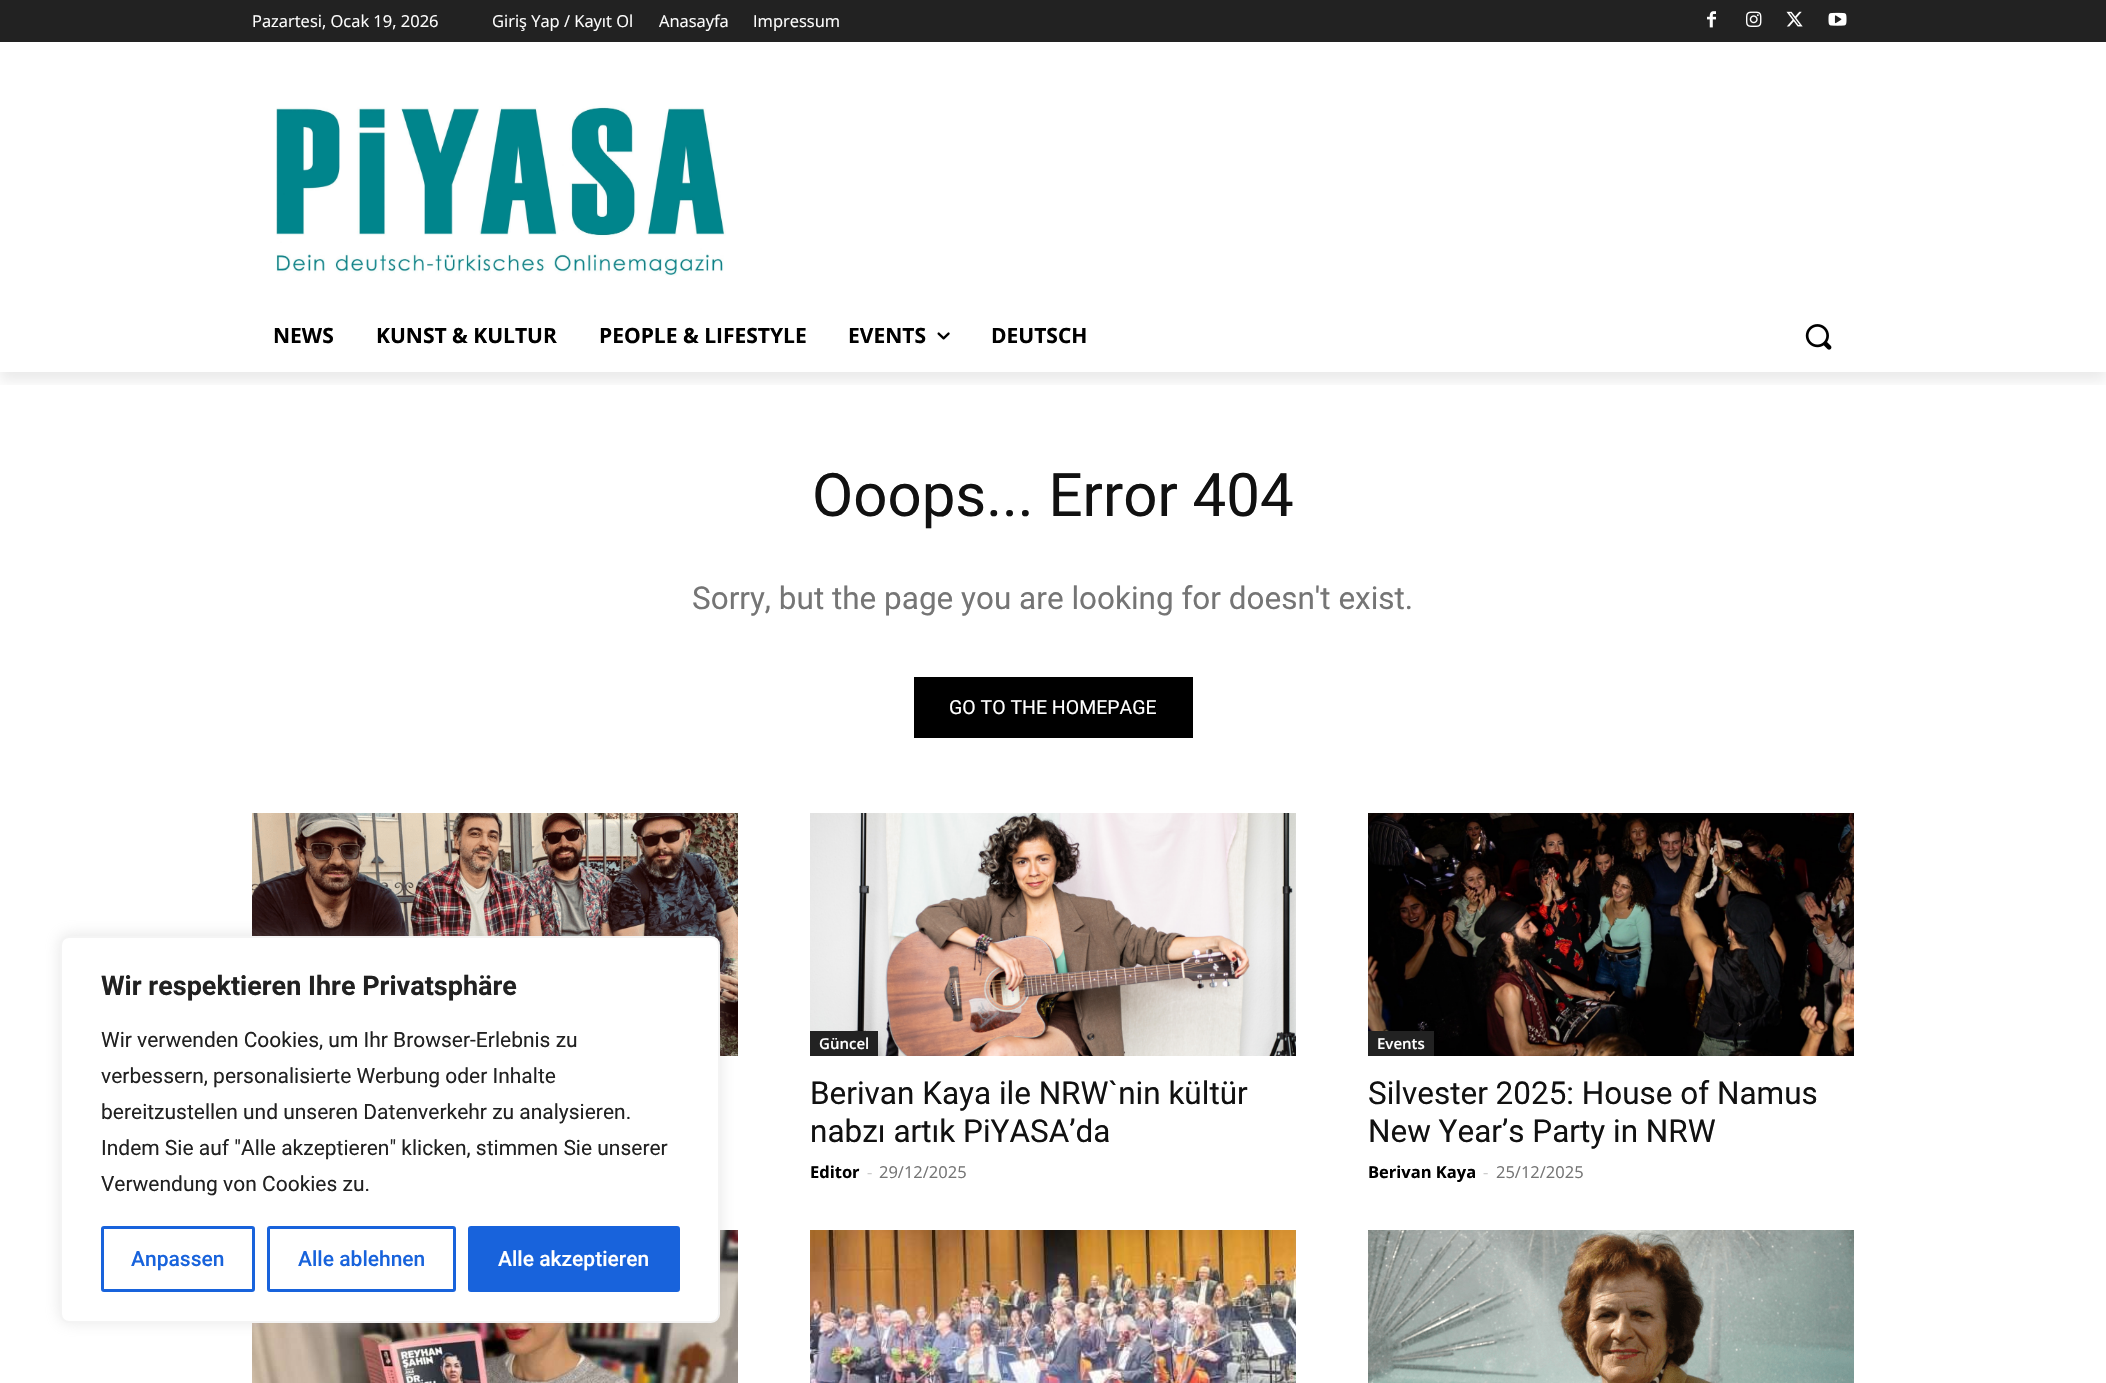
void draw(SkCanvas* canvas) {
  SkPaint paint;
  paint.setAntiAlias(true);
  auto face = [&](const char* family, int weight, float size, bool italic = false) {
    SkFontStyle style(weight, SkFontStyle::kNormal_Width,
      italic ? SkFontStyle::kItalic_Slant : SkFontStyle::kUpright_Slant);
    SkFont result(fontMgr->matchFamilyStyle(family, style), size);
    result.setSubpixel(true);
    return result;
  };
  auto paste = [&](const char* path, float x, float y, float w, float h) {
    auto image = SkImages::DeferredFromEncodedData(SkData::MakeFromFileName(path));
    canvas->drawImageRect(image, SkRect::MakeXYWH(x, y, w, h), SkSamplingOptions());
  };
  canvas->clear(0xffffffff);
  paint.setColor(0xff222222);
  canvas->drawRect(SkRect::MakeXYWH(0, 0, 2106, 42), paint);
  paste("img/1.png", 1707, 11, 9, 17);
  paste("img/2.png", 1746, 11, 16, 16);
  paste("img/3.png", 1786, 11, 17, 16);
  paste("img/4.png", 1828, 12, 19, 14);
  paste("img/5.png", 276, 106, 450, 170);
  canvas->save();
  canvas->clipRect(SkRect::MakeXYWH(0, 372, 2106, 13));
  paint.setColor(0x14000000);
  paint.setMaskFilter(SkMaskFilter::MakeBlur(kNormal_SkBlurStyle, 6));
  canvas->drawRect(SkRect::MakeXYWH(0, 9, 2106, 372), paint);
  paint.setMaskFilter(nullptr);
  canvas->restore();
  paste("img/6.png", 937, 332, 13, 8);
  paste("img/7.png", 1805, 324, 27, 26);
  paint.setColor(0xff000000);
  canvas->drawRect(SkRect::MakeXYWH(914, 677, 279, 61), paint);
  paste("img/8.png", 252, 813, 486, 243);
  paste("img/9.png", 810, 813, 486, 243);
  paint.setColor(0xff222222);
  canvas->drawRect(SkRect::MakeXYWH(810, 1031, 68, 25), paint);
  paste("img/10.png", 1368, 813, 486, 243);
  canvas->drawRect(SkRect::MakeXYWH(1368, 1031, 66, 25), paint);
  paste("img/11.png", 252, 1230, 486, 153);
  paste("img/12.png", 810, 1230, 486, 153);
  paste("img/13.png", 1368, 1230, 486, 153);
  paint.setColor(0x4dacabab);
  paint.setMaskFilter(SkMaskFilter::MakeBlur(kNormal_SkBlurStyle, 7.5f));
  canvas->drawRoundRect(SkRect::MakeXYWH(60, 935, 660, 387), 9, 9, paint);
  paint.setMaskFilter(nullptr);
  paint.setColor(0xffffffff);
  canvas->drawRoundRect(SkRect::MakeXYWH(61, 937, 658, 385), 8, 8, paint);
  paint.setStroke(true);
  paint.setStrokeWidth(2);
  paint.setColor(0xfff4f4f4);
  canvas->drawRoundRect(SkRect::MakeXYWH(61, 937, 658, 385), 8, 8, paint);
  paint.setStrokeWidth(3);
  paint.setColor(0xff1863dc);
  canvas->drawRoundRect(SkRect::MakeXYWH(102.5f, 1227.5f, 151, 63), 1.5f, 1.5f, paint);
  canvas->drawRoundRect(SkRect::MakeXYWH(268.5f, 1227.5f, 186, 63), 1.5f, 1.5f, paint);
  paint.setStroke(false);
  canvas->drawRoundRect(SkRect::MakeXYWH(469.5f, 1227.5f, 209, 63), 1.5f, 1.5f, paint);
  paint.setStroke(true);
  canvas->drawRoundRect(SkRect::MakeXYWH(469.5f, 1227.5f, 209, 63), 1.5f, 1.5f, paint);
  auto f0 = face("Open Sans", 400, 16.5f);
  paint.setStroke(false);
  paint.setColor(0xffffffff);
  {
    const struct { const char* s; float x, y; } items[] = {
      {"Pazartesi, Ocak 19, 2026", 252, 27},
      {"Giriş Yap / Kayıt Ol", 492, 27},
      {"Anasayfa", 659, 27},
      {"Impressum", 753, 27},
    };
    for (auto [s, x, y] : items) {
      canvas->drawString(s, x, y, f0, paint);
    }
  }
  auto f1 = face("Open Sans", 700, 21);
  paint.setColor(0xff000000);
  {
    const struct { const char* s; float x, y; } items[] = {
      {"NEWS", 273, 343},
      {"KUNST & KULTUR", 376, 343},
      {"PEOPLE & LIFESTYLE", 599, 343},
      {"EVENTS", 848, 343},
      {"DEUTSCH", 991, 343},
    };
    for (auto [s, x, y] : items) {
      canvas->drawString(s, x, y, f1, paint);
    }
  }
  auto f2 = face("Roboto", 400, 60);
  paint.setColor(0xff111111);
  canvas->drawString("Ooops... Error 404", 812, 516, f2, paint);
  auto f3 = face("Roboto", 400, 31.5f);
  paint.setColor(0xff757575);
  canvas->drawString("Sorry, but the page you are looking for doesn't exist.", 692, 609, f3, paint);
  auto f4 = face("Roboto", 400, 19.5f);
  paint.setColor(0xffffffff);
  canvas->drawString("GO TO THE HOMEPAGE", 949, 714, f4, paint);
  auto f5 = face("Open Sans", 600, 15);
  canvas->drawString("Güncel", 819, 1049, f5, paint);
  paint.setColor(0xff111111);
  canvas->drawString("Berivan Kaya ile NRW`nin kültür", 810, 1104, f3, paint);
  canvas->drawString("nabzı artık PiYASA’da", 810, 1142, f3, paint);
  auto f6 = face("Open Sans", 700, 16.5f);
  paint.setColor(0xff000000);
  canvas->drawString("Editor", 810, 1178, f6, paint);
  paint.setColor(0xffcccccc);
  canvas->drawString("-", 867, 1178, f0, paint);
  paint.setColor(0xff757575);
  canvas->drawString("29/12/2025", 879, 1178, f0, paint);
  paint.setColor(0xffffffff);
  canvas->drawString("Events", 1377, 1049, f5, paint);
  paint.setColor(0xff111111);
  canvas->drawString("Silvester 2025: House of Namus", 1368, 1104, f3, paint);
  canvas->drawString("New Year’s Party in NRW", 1368, 1142, f3, paint);
  paint.setColor(0xff000000);
  canvas->drawString("Berivan Kaya", 1368, 1178, f6, paint);
  paint.setColor(0xffcccccc);
  canvas->drawString("-", 1483, 1178, f0, paint);
  paint.setColor(0xff757575);
  canvas->drawString("25/12/2025", 1496, 1178, f0, paint);
  auto f7 = face("Roboto", 700, 27);
  paint.setColor(0xff212121);
  canvas->drawString("Wir respektieren Ihre Privatsphäre", 101, 995, f7, paint);
  auto f8 = face("Roboto", 400, 21);
  {
    const struct { const char* s; float x, y; } items[] = {
      {"Wir verwenden Cookies, um Ihr Browser-Erlebnis zu", 101, 1047},
      {"verbessern, personalisierte Werbung oder Inhalte", 101, 1083},
      {"bereitzustellen und unseren Datenverkehr zu analysieren.", 101, 1119},
      {"Indem Sie auf \"Alle akzeptieren\" klicken, stimmen Sie unserer", 101, 1155},
      {"Verwendung von Cookies zu.", 101, 1191},
    };
    for (auto [s, x, y] : items) {
      canvas->drawString(s, x, y, f8, paint);
    }
  }
  auto f9 = face("Roboto", 500, 21);
  paint.setColor(0xff1863dc);
  canvas->drawString("Anpassen", 131, 1266, f9, paint);
  canvas->drawString("Alle ablehnen", 298, 1266, f9, paint);
  paint.setColor(0xffffffff);
  canvas->drawString("Alle akzeptieren", 498, 1266, f9, paint);
}
